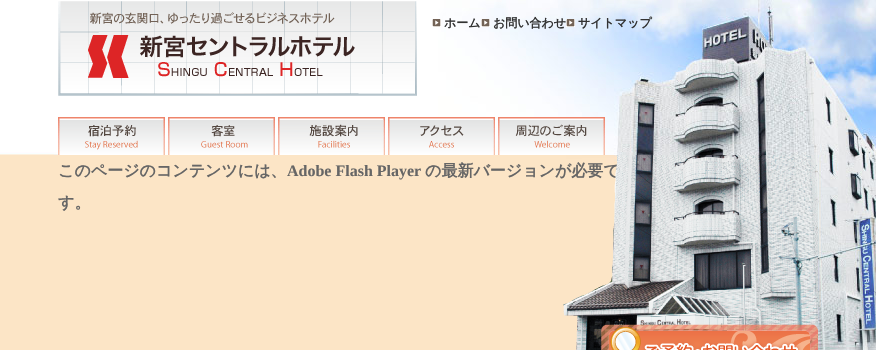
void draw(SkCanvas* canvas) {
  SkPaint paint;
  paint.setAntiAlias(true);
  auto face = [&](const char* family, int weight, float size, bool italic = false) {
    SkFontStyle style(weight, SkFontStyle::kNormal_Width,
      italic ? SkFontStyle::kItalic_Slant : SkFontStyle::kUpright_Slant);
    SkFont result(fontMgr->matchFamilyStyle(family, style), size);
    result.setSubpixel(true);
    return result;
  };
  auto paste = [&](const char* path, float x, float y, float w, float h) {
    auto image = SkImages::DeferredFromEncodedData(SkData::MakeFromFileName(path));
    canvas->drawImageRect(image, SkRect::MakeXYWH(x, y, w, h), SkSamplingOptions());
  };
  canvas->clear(0xffffffff);
  paste("img/1.png", 0, 0, 876, 155);
  paste("img/2.png", 58, 1, 359, 95);
  paste("img/3.png", 432, 19, 9, 8);
  paste("img/3.png", 481, 19, 9, 8);
  paste("img/3.png", 566, 19, 9, 8);
  paste("img/4.png", 58, 117, 107, 38);
  paste("img/5.png", 168, 117, 107, 38);
  paste("img/6.png", 278, 117, 107, 38);
  paste("img/7.png", 388, 117, 107, 38);
  paste("img/8.png", 498, 117, 107, 38);
  paste("img/9.png", 0, 155, 876, 195);
  auto f0 = face("WenQuanYi Zen Hei", 700, 12);
  paint.setColor(0xff333333);
  {
    const struct { const char* s; float x, y; } items[] = {
      {"ホーム", 444, 27},
      {"お問い合わせ", 493, 27},
      {"サイトマップ", 578, 27},
    };
    for (auto [s, x, y] : items) {
      canvas->drawString(s, x, y, f0, paint);
    }
  }
  auto f1 = face("WenQuanYi Zen Hei", 700, 16);
  paint.setColor(0xff666666);
  canvas->drawString("このページのコンテンツには、", 58, 176, f1, paint);
  auto f2 = face("Liberation Serif", 700, 16);
  canvas->drawString("Adobe Flash Player", 287, 176, f2, paint);
  canvas->drawString("の最新バージョンが必要で", 425, 176, f1, paint);
  canvas->drawString("す。", 58, 208, f1, paint);
  paste("img/10.png", 563, 155, 255, 195);
}
